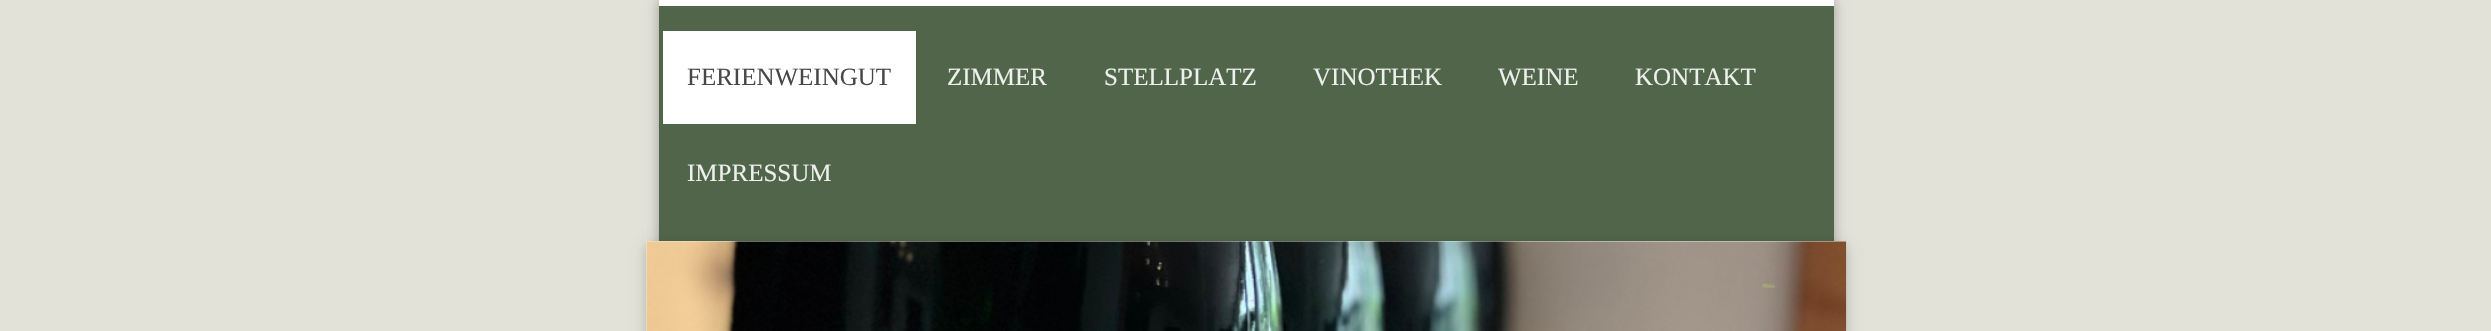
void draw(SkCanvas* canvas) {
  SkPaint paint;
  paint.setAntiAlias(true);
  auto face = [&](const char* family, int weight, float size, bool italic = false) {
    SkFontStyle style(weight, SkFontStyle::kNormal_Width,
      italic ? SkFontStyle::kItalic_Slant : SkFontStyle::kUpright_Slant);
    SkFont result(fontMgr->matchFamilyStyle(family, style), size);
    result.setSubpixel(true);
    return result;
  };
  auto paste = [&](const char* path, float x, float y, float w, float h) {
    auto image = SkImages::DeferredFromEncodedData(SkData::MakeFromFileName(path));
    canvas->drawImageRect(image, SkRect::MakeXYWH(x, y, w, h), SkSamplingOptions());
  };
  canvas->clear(0xffe2e2d9);
  paint.setColor(0x4d000000);
  paint.setMaskFilter(SkMaskFilter::MakeBlur(kNormal_SkBlurStyle, 6));
  canvas->drawRect(SkRect::MakeXYWH(659, 0, 1175, 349), paint);
  paint.setMaskFilter(nullptr);
  {
    const struct { float x, y, w, h; SkColor color; } items[] = {
      {659, 6, 1175, 235, 0xff506549},
      {659, 0, 1175, 6, 0xffffffff},
      {663, 31, 253, 93, 0xffffffff},
    };
    for (auto [x, y, w, h, color] : items) {
      paint.setColor(color);
      canvas->drawRect(SkRect::MakeXYWH(x, y, w, h), paint);
    }
  }
  paint.setColor(0x33000000);
  paint.setMaskFilter(SkMaskFilter::MakeBlur(kNormal_SkBlurStyle, 6));
  canvas->drawRect(SkRect::MakeXYWH(646, 245, 1200, 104), paint);
  paint.setMaskFilter(nullptr);
  paint.setColor(0xffeeeeee);
  canvas->drawRect(SkRect::MakeXYWH(646, 241, 1200, 90), paint);
  paste("img/1.png", 646, 241, 1201, 90);
  paste("img/2.png", 1762, 283, 13, 5);
  auto f0 = face("Liberation Serif", 400, 25);
  paint.setColor(0xff474747);
  canvas->drawString("FERIENWEINGUT", 687, 85, f0, paint);
  paint.setColor(0xffeef0ed);
  {
    const struct { const char* s; float x, y; } items[] = {
      {"ZIMMER", 947, 85},
      {"STELLPLATZ", 1104, 85},
      {"VINOTHEK", 1313, 85},
      {"WEINE", 1498, 85},
      {"KONTAKT", 1635, 85},
      {"IMPRESSUM", 687, 181},
    };
    for (auto [s, x, y] : items) {
      canvas->drawString(s, x, y, f0, paint);
    }
  }
}
